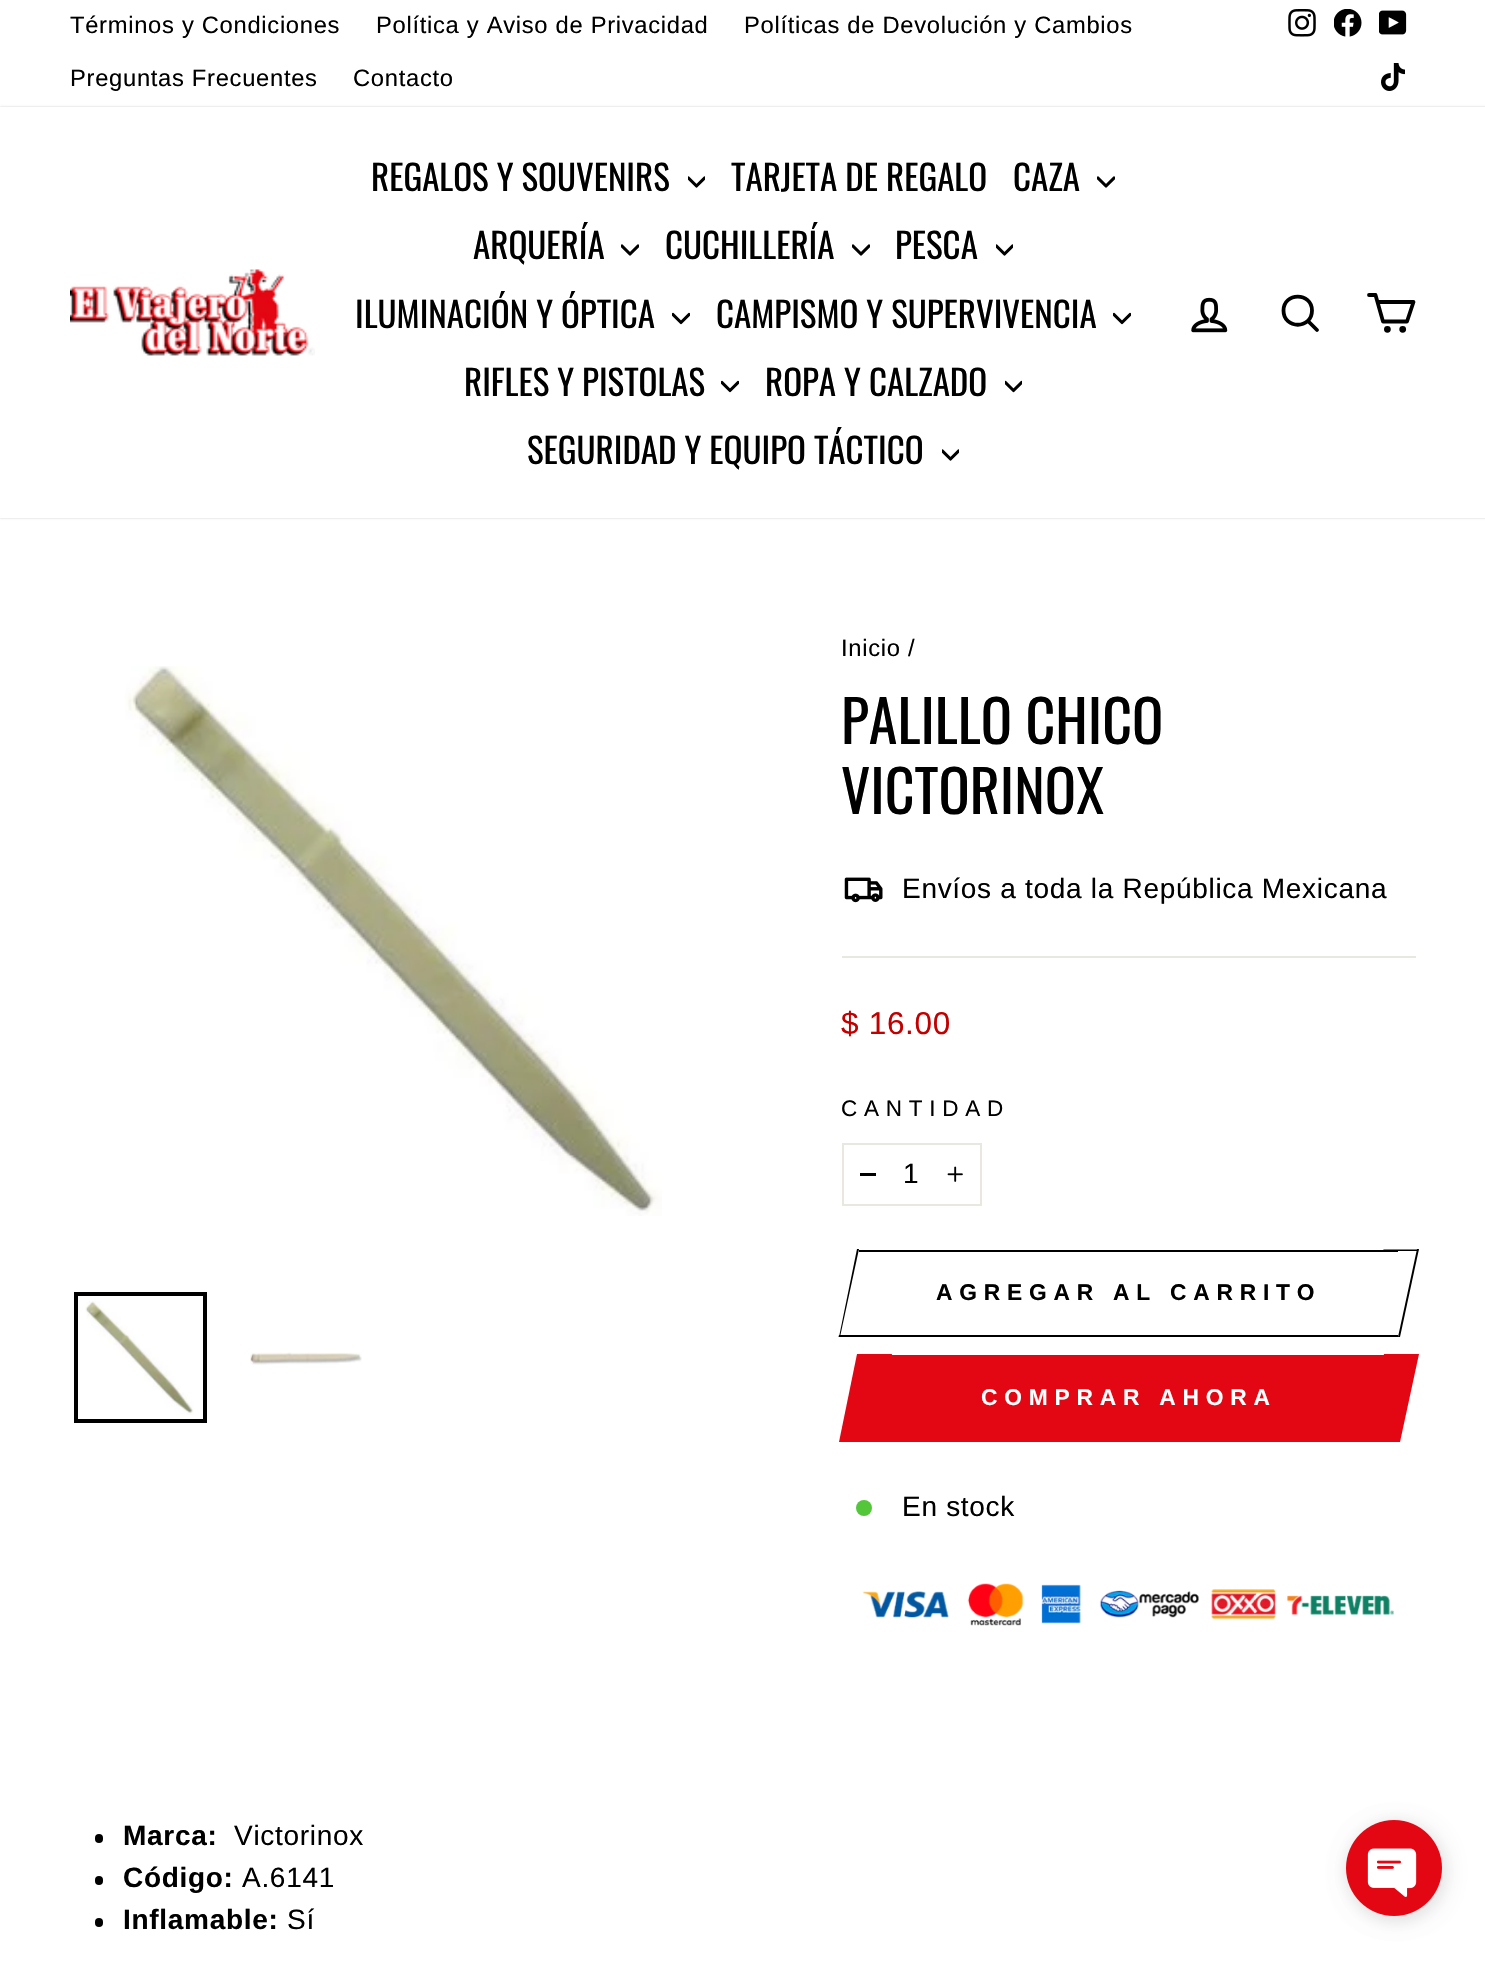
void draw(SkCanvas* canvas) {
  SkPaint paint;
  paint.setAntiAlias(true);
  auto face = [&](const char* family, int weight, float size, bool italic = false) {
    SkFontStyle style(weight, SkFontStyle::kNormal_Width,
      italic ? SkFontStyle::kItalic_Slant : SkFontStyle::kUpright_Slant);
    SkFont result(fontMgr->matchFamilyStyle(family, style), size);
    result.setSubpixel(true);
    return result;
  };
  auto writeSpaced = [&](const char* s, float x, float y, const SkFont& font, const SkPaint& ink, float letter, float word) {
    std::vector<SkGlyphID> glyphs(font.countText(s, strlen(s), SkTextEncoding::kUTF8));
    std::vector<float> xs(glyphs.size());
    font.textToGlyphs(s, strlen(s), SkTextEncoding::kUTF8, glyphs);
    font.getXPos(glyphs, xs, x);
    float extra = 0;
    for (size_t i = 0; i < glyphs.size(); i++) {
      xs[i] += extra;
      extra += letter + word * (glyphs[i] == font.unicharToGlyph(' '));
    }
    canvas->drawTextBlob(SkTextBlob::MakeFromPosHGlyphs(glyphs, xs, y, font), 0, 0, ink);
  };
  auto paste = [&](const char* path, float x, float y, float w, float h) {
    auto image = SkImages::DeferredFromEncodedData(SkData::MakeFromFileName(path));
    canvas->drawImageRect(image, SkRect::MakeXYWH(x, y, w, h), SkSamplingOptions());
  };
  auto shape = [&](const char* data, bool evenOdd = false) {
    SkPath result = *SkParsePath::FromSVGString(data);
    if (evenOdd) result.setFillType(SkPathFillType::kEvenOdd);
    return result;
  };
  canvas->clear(0xffffffff);
  paste("img/1.png", 1288, 9, 28, 28);
  paste("img/2.png", 1334, 9, 28, 28);
  paste("img/3.png", 1379, 10, 28, 25);
  paste("img/4.png", 1381, 63, 24, 28);
  canvas->save();
  canvas->clipPath(shape("M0 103H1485V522H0ZM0 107H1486V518H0Z", true), true);
  paint.setColor(0x33000000);
  paint.setMaskFilter(SkMaskFilter::MakeBlur(kNormal_SkBlurStyle, 1));
  canvas->drawRect(SkRect::MakeXYWH(0, 107, 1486, 411), paint);
  paint.setMaskFilter(nullptr);
  canvas->restore();
  paste("img/5.png", 70, 269, 245, 87);
  canvas->save();
  canvas->clipRect(SkRect::MakeXYWH(688, 173, 17, 18));
  paint.setStroke(true);
  paint.setStrokeWidth(3.1f);
  paint.setStrokeCap(SkPaint::kRound_Cap);
  paint.setStrokeJoin(SkPaint::kRound_Join);
  paint.setColor(0xff000000);
  canvas->drawPath(shape("M688.5 178L696.5 186L704.5 178"), paint);
  canvas->restore();
  canvas->save();
  canvas->clipRect(SkRect::MakeXYWH(1097, 173, 18, 18));
  canvas->drawPath(shape("M1098 178L1106 186L1114 178"), paint);
  canvas->restore();
  canvas->save();
  canvas->clipRect(SkRect::MakeXYWH(621, 242, 18, 17));
  canvas->drawPath(shape("M622 246L630 254L638 246"), paint);
  canvas->restore();
  canvas->save();
  canvas->clipRect(SkRect::MakeXYWH(852, 242, 18, 17));
  canvas->drawPath(shape("M853 246L861 254L869 246"), paint);
  canvas->restore();
  canvas->save();
  canvas->clipRect(SkRect::MakeXYWH(996, 242, 17, 17));
  canvas->drawPath(shape("M996.5 246L1004.5 254L1012.5 246"), paint);
  canvas->restore();
  canvas->save();
  canvas->clipRect(SkRect::MakeXYWH(672, 310, 18, 17));
  canvas->drawPath(shape("M673 314.5L681 322.5L689 314.5"), paint);
  canvas->restore();
  canvas->save();
  canvas->clipRect(SkRect::MakeXYWH(1113, 310, 18, 17));
  canvas->drawPath(shape("M1114 314.5L1122 322.5L1130 314.5"), paint);
  canvas->restore();
  canvas->save();
  canvas->clipRect(SkRect::MakeXYWH(721, 378, 18, 18));
  canvas->drawPath(shape("M722 382.5L730 390.5L738 382.5"), paint);
  canvas->restore();
  canvas->save();
  canvas->clipRect(SkRect::MakeXYWH(1005, 378, 17, 18));
  canvas->drawPath(shape("M1005.5 382.5L1013.5 390.5L1021.5 382.5"), paint);
  canvas->restore();
  canvas->save();
  canvas->clipRect(SkRect::MakeXYWH(942, 446, 17, 18));
  canvas->drawPath(shape("M942.5 451L950.5 459L958.5 451"), paint);
  canvas->restore();
  paste("img/6.png", 1191, 297, 37, 36);
  paint.setStrokeWidth(3.8f);
  canvas->drawPath(shape("M1312 310.5C1312 329.5 1283.5 329.5 1283.5 310.5C1283.5 292 1312 292 1312 310.5ZM1317 330L1308 321"), paint);
  canvas->drawPath(shape("M1377.5 302H1413.5L1407 321.5H1383L1375.5 295H1369"), paint);
  paint.setStroke(false);
  canvas->drawCircle(1387.4f, 329.3f, 1.5f, paint);
  paint.setStroke(true);
  paint.setStrokeCap(SkPaint::kButt_Cap);
  paint.setStrokeJoin(SkPaint::kMiter_Join);
  canvas->drawCircle(1387.4f, 329.3f, 1.5f, paint);
  paint.setStroke(false);
  canvas->drawCircle(1402.7f, 329.3f, 1.5f, paint);
  paint.setStroke(true);
  canvas->drawCircle(1402.7f, 329.3f, 1.5f, paint);
  paste("img/7.png", 125, 666, 537, 550);
  paste("img/8.png", 85, 1301, 109, 114);
  paint.setStrokeWidth(4);
  canvas->drawRect(SkRect::MakeXYWH(76, 1294, 129, 127), paint);
  paste("img/9.png", 250, 1352, 112, 13);
  paste("img/10.png", 844, 877, 39, 26);
  paint.setStroke(false);
  paint.setColor(0xffe8e8e1);
  canvas->drawRect(SkRect::MakeXYWH(842, 956, 574, 2), paint);
  paint.setStroke(true);
  paint.setStrokeWidth(2);
  canvas->drawRect(SkRect::MakeXYWH(843, 1144, 138, 61), paint);
  paint.setStroke(false);
  paint.setColor(0xff000000);
  canvas->drawRect(SkRect::MakeXYWH(860, 1173, 16, 3), paint);
  paste("img/11.png", 947, 1166, 16, 16);
  canvas->drawRect(SkRect::MakeXYWH(859, 1250, 539, 2), paint);
  canvas->drawRect(SkRect::MakeXYWH(873, 1335, 525, 2), paint);
  canvas->drawPath(shape("M839 1335H874L873.5 1337H838.5Z"), paint);
  canvas->drawPath(shape("M857 1249H859L840 1337H839Z"), paint);
  canvas->drawPath(shape("M1383.5 1249.5H1418.5L1418 1251H1383Z"), paint);
  canvas->drawPath(shape("M1417 1249H1419L1400 1337H1398Z"), paint);
  paint.setColor(0xffe30613);
  canvas->drawRect(SkRect::MakeXYWH(874, 1355, 510, 87), paint);
  canvas->drawPath(shape("M857 1354H892L874 1442H839Z"), paint);
  canvas->drawPath(shape("M1384 1354H1419L1400 1442H1365Z"), paint);
  paint.setColor(0xff54c63a);
  canvas->drawCircle(864, 1508, 8, paint);
  paste("img/12.png", 862, 1583, 532, 43);
  paint.setColor(0xff000000);
  canvas->drawRoundRect(SkRect::MakeXYWH(95, 1834, 8, 9), 4, 4, paint);
  canvas->drawRoundRect(SkRect::MakeXYWH(95, 1876, 8, 9), 4, 4, paint);
  canvas->drawRoundRect(SkRect::MakeXYWH(95, 1918, 8, 9), 4, 4, paint);
  paint.setColor(0x12000000);
  paint.setMaskFilter(SkMaskFilter::MakeBlur(kNormal_SkBlurStyle, 8));
  canvas->drawRoundRect(SkRect::MakeXYWH(1346, 1820, 103, 103), 51.5f, 51.5f, paint);
  paint.setMaskFilter(nullptr);
  paint.setColor(0x0d000000);
  paint.setMaskFilter(SkMaskFilter::MakeBlur(kNormal_SkBlurStyle, 9));
  canvas->drawRoundRect(SkRect::MakeXYWH(1346, 1824, 96, 96), 48, 48, paint);
  paint.setMaskFilter(nullptr);
  paste("img/13.png", 1346, 1820, 96, 96);
  auto f0 = face("Liberation Sans", 400, 23.75f);
  paint.setColor(0xff000000);
  {
    const struct { const char* s; float x, y; } items[] = {
      {"Términos y Condiciones", 70, 33},
      {"Política y Aviso de Privacidad", 376, 33},
      {"Políticas de Devolución y Cambios", 744, 33},
      {"Preguntas Frecuentes", 70, 86},
      {"Contacto", 353, 86},
    };
    for (auto [s, x, y] : items) {
      writeSpaced(s, x, y, f0, paint, 0.7f, 0);
    }
  }
  auto f1 = face("Oswald", 400, 35);
  {
    const struct { const char* s; float x, y; } items[] = {
      {"REGALOS Y SOUVENIRS", 371, 191},
      {"TARJETA DE REGALO", 731, 191},
      {"CAZA", 1013, 191},
      {"ARQUERÍA", 473, 259},
      {"CUCHILLERÍA", 665, 259},
      {"PESCA", 895, 259},
      {"ILUMINACIÓN Y ÓPTICA", 355, 328},
      {"CAMPISMO Y SUPERVIVENCIA", 716, 328},
      {"RIFLES Y PISTOLAS", 464, 396},
      {"ROPA Y CALZADO", 765, 396},
      {"SEGURIDAD Y EQUIPO TÁCTICO", 527, 464},
    };
    for (auto [s, x, y] : items) {
      canvas->drawString(s, x, y, f1, paint);
    }
  }
  writeSpaced("Inicio /", 841, 656, f0, paint, 0.7f, 0);
  auto f2 = face("Oswald", 400, 58);
  canvas->drawString("PALILLO CHICO", 841, 744, f2, paint);
  canvas->drawString("VICTORINOX", 841, 814, f2, paint);
  auto f3 = face("Liberation Sans", 400, 28);
  writeSpaced("Envíos a toda la República Mexicana", 902, 898, f3, paint, 0.7f, 0);
  auto f4 = face("Liberation Sans", 400, 31.5f);
  paint.setColor(0xffc20000);
  writeSpaced("$ 16.00", 841, 1034, f4, paint, 0.7f, 0);
  auto f5 = face("Liberation Sans", 400, 22.5f);
  paint.setColor(0xff000000);
  writeSpaced("CANTIDAD", 841, 1116, f5, paint, 6.75f, 0);
  writeSpaced("1", 903, 1183, f3, paint, 0.7f, 0);
  auto f6 = face("Liberation Sans", 700, 22.75f);
  writeSpaced("AGREGAR AL CARRITO", 936, 1300, f6, paint, 6.8f, 0);
  paint.setColor(0xffffffff);
  writeSpaced("COMPRAR AHORA", 981, 1405, f6, paint, 6.8f, 0);
  paint.setColor(0xff000000);
  writeSpaced("En stock", 902, 1516, f3, paint, 0.7f, 0);
  auto f7 = face("Liberation Sans", 700, 28);
  writeSpaced("Marca:", 123, 1845, f7, paint, 0.7f, 0);
  writeSpaced("Victorinox", 234, 1845, f3, paint, 0.7f, 0);
  writeSpaced("Código:", 123, 1887, f7, paint, 0.7f, 0);
  writeSpaced("A.6141", 242, 1887, f3, paint, 0.7f, 0);
  writeSpaced("Inflamable:", 123, 1929, f7, paint, 0.7f, 0);
  writeSpaced("Sí", 287, 1929, f3, paint, 0.7f, 0);
}
